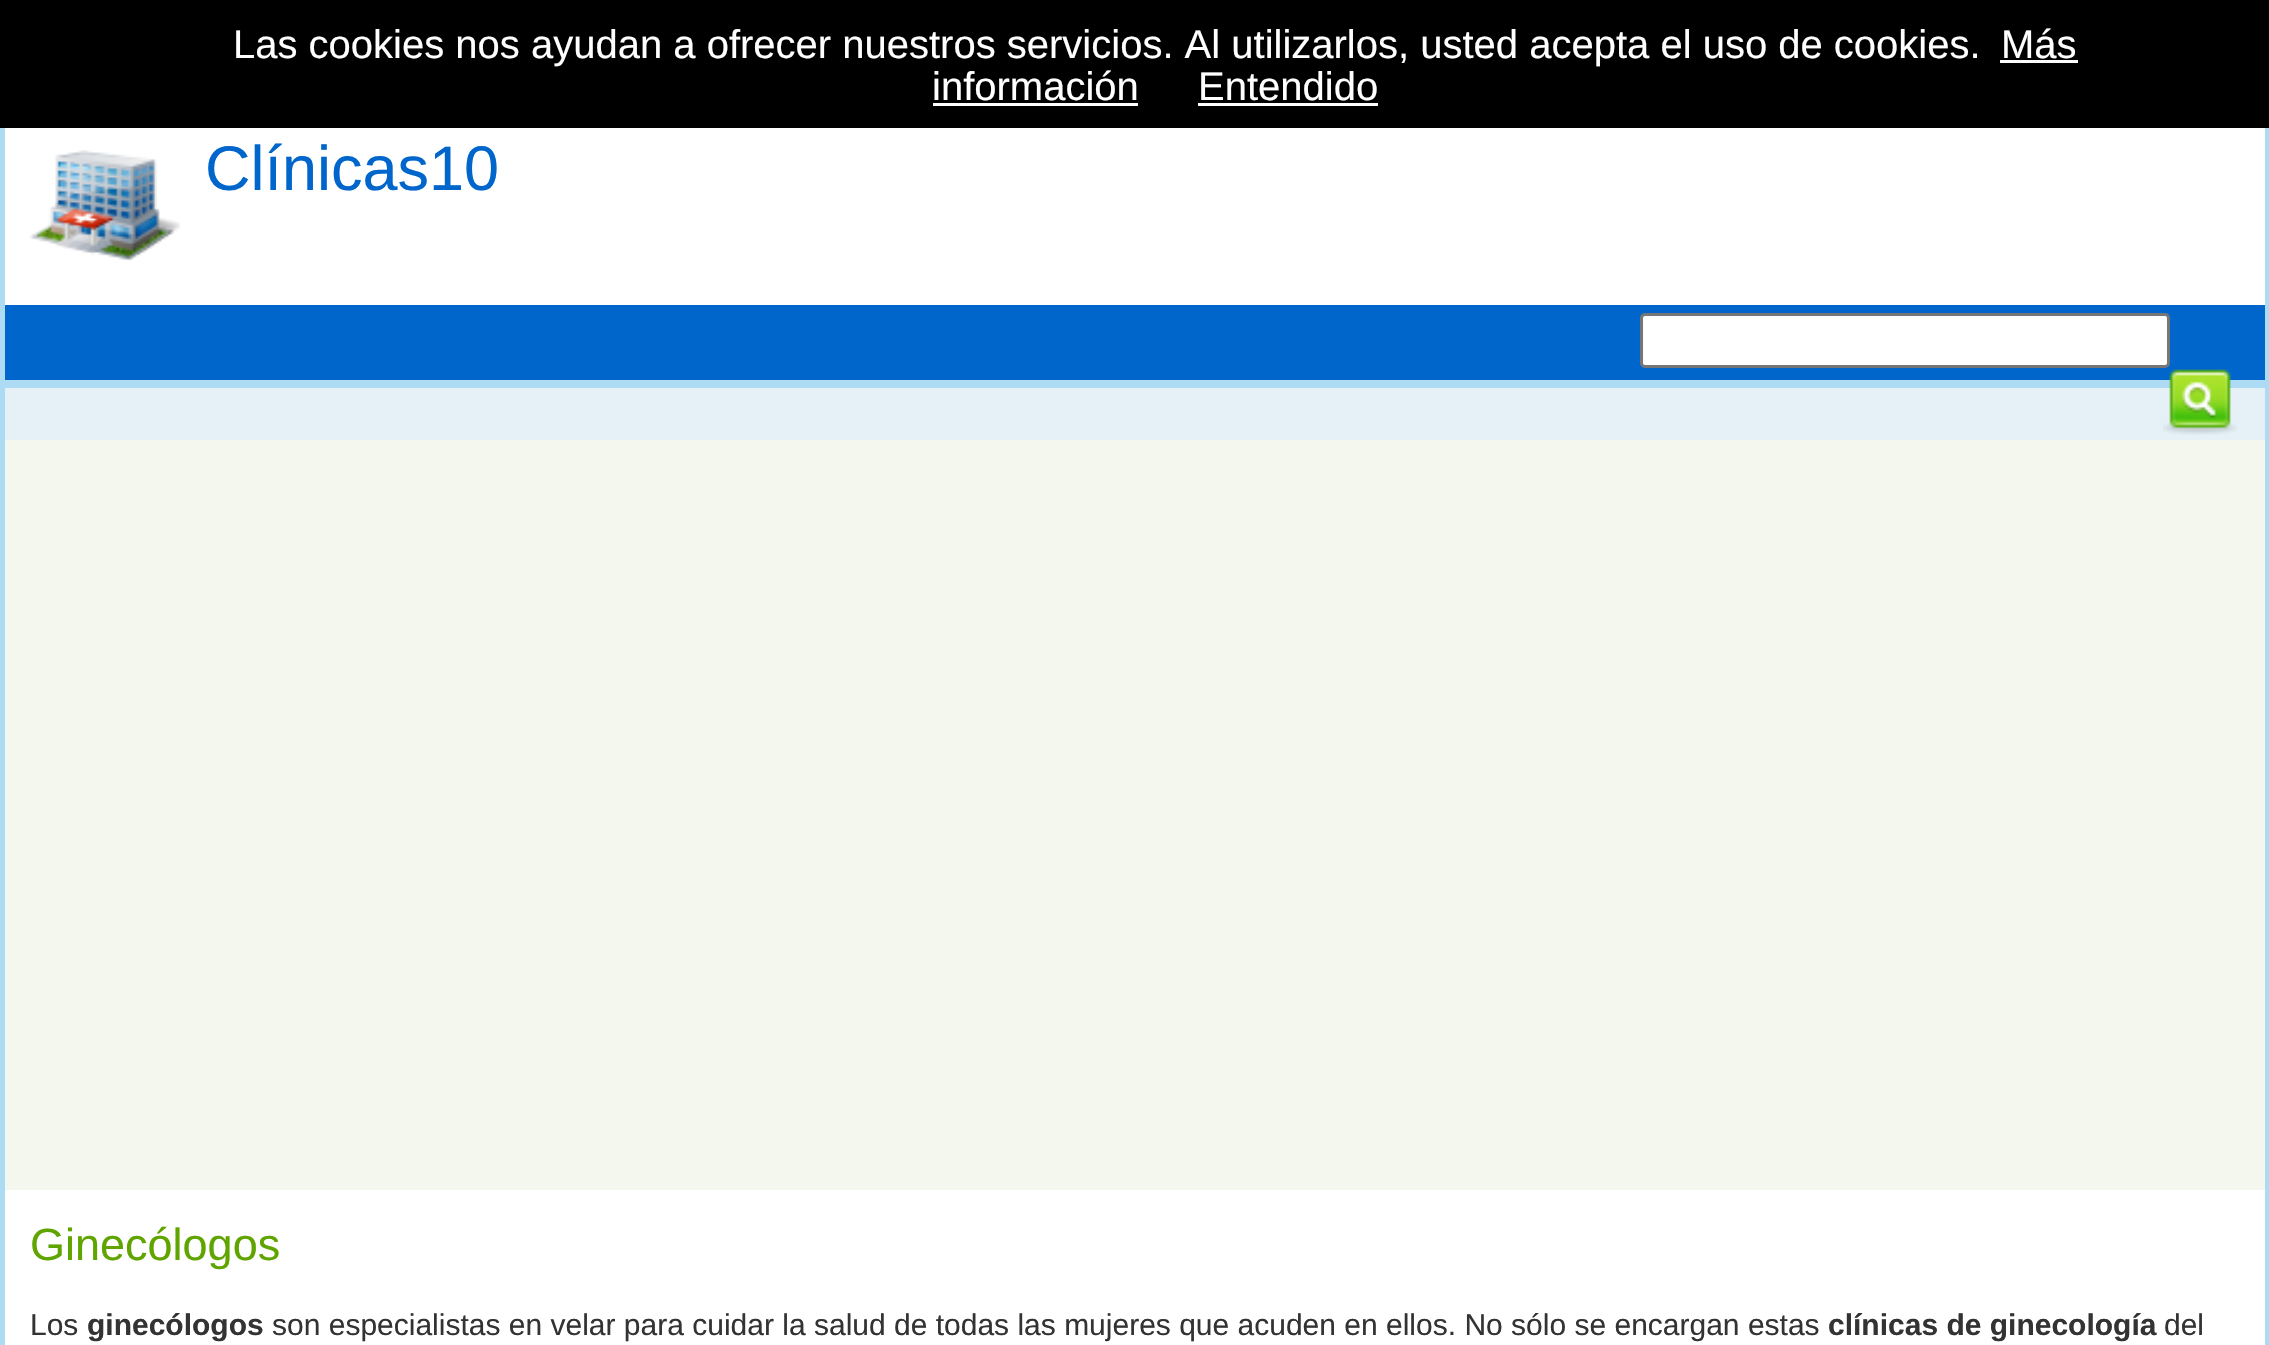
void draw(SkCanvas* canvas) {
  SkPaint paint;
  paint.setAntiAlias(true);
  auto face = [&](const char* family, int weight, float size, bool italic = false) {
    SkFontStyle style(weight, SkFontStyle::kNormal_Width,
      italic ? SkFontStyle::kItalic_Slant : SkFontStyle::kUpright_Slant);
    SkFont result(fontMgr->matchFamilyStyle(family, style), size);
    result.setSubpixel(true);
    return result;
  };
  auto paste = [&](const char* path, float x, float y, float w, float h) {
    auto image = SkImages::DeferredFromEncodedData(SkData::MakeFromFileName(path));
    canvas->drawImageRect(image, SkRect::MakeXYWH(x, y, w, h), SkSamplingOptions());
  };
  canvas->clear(0xffffffff);
  paste("img/1.png", 5, 388, 2260, 52);
  paint.setStroke(true);
  paint.setStrokeWidth(5);
  paint.setColor(0xffacdbf3);
  canvas->drawRect(SkRect::MakeXYWH(2.5f, 2.5f, 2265, 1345), paint);
  paint.setStroke(false);
  {
    const struct { float x, y, w, h; SkColor color; } items[] = {
      {0, 0, 2269, 128, 0xff000000},
      {2000, 60, 78, 3, 0xffffffff},
      {933, 103, 205, 3, 0xffffffff},
      {1198, 103, 180, 3, 0xffffffff},
    };
    for (auto [x, y, w, h, color] : items) {
      paint.setColor(color);
      canvas->drawRect(SkRect::MakeXYWH(x, y, w, h), paint);
    }
  }
  paste("img/2.png", 30, 150, 150, 112);
  paint.setColor(0xff0066cc);
  canvas->drawRect(SkRect::MakeXYWH(5, 305, 2260, 75), paint);
  paint.setColor(0xffacdbf3);
  canvas->drawRect(SkRect::MakeXYWH(5, 380, 2260, 8), paint);
  paint.setColor(0xffffffff);
  canvas->drawRoundRect(SkRect::MakeXYWH(1641.5f, 314.5f, 527, 52), 3.5f, 3.5f, paint);
  paint.setStroke(true);
  paint.setStrokeWidth(3);
  paint.setColor(0xff767676);
  canvas->drawRoundRect(SkRect::MakeXYWH(1641.5f, 314.5f, 527, 52), 3.5f, 3.5f, paint);
  paste("img/3.png", 2163, 369, 74, 66);
  paint.setStroke(false);
  paint.setColor(0xfff3f7ee);
  canvas->drawRect(SkRect::MakeXYWH(5, 440, 2260, 750), paint);
  auto f0 = face("Liberation Sans", 400, 40);
  paint.setColor(0xffffffff);
  {
    const struct { const char* s; float x, y; } items[] = {
      {"Las cookies nos ayudan a ofrecer nuestros servicios. Al utilizarlos, usted acepta el uso de cookies.", 233, 58},
      {"Más", 2001, 58},
      {"información", 932, 100},
      {"Entendido", 1198, 100},
    };
    for (auto [s, x, y] : items) {
      canvas->drawString(s, x, y, f0, paint);
    }
  }
  auto f1 = face("Liberation Sans", 400, 63);
  paint.setColor(0xff0066cc);
  canvas->drawString("Clínicas10", 205, 190, f1, paint);
  auto f2 = face("Liberation Sans", 400, 45);
  paint.setColor(0xff60a400);
  canvas->drawString("Ginecólogos", 30, 1260, f2, paint);
  auto f3 = face("Liberation Sans", 400, 30);
  paint.setColor(0xff333333);
  canvas->drawString("Los", 30, 1335, f3, paint);
  auto f4 = face("Liberation Sans", 700, 30);
  canvas->drawString("ginecólogos", 87, 1335, f4, paint);
  canvas->drawString("son especialistas en velar para cuidar la salud de todas las mujeres que acuden en ellos. No sólo se encargan estas", 272, 1335, f3, paint);
  canvas->drawString("clínicas de ginecología", 1828, 1335, f4, paint);
  canvas->drawString("del", 2164, 1335, f3, paint);
}
